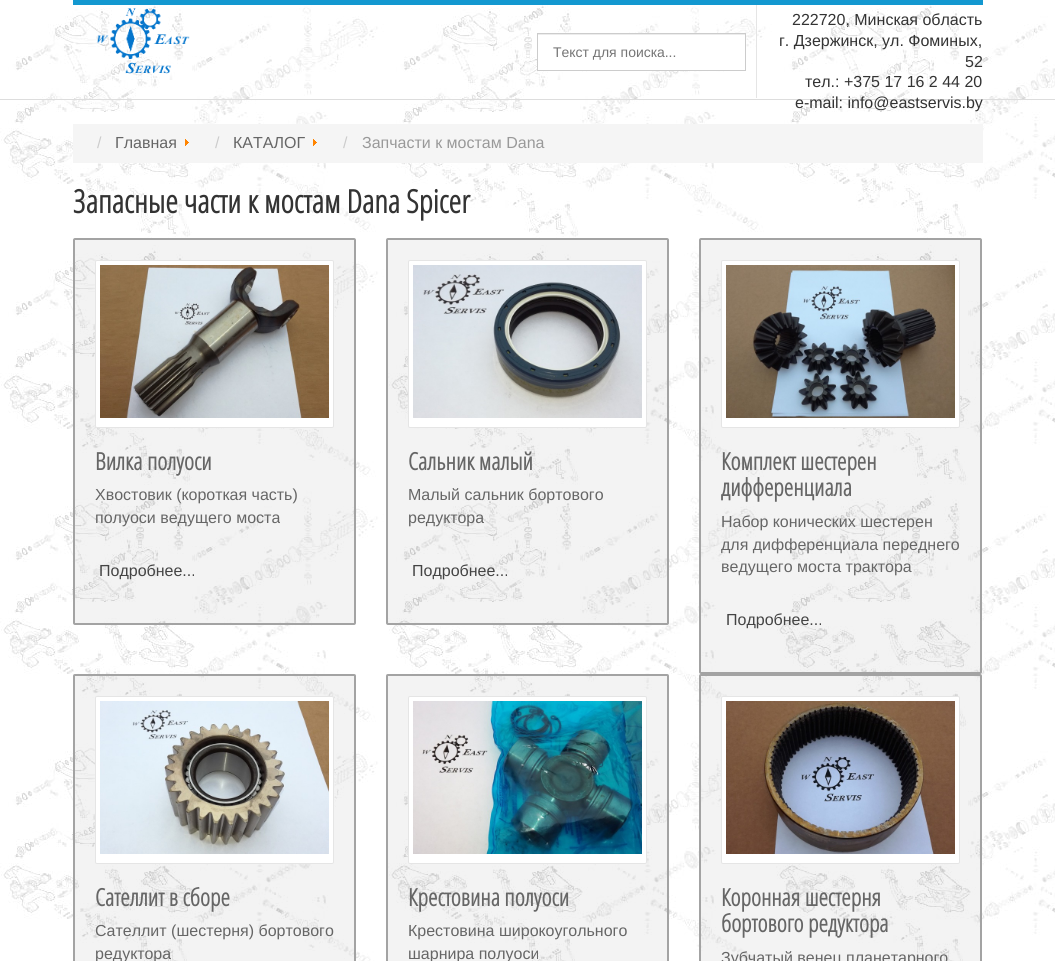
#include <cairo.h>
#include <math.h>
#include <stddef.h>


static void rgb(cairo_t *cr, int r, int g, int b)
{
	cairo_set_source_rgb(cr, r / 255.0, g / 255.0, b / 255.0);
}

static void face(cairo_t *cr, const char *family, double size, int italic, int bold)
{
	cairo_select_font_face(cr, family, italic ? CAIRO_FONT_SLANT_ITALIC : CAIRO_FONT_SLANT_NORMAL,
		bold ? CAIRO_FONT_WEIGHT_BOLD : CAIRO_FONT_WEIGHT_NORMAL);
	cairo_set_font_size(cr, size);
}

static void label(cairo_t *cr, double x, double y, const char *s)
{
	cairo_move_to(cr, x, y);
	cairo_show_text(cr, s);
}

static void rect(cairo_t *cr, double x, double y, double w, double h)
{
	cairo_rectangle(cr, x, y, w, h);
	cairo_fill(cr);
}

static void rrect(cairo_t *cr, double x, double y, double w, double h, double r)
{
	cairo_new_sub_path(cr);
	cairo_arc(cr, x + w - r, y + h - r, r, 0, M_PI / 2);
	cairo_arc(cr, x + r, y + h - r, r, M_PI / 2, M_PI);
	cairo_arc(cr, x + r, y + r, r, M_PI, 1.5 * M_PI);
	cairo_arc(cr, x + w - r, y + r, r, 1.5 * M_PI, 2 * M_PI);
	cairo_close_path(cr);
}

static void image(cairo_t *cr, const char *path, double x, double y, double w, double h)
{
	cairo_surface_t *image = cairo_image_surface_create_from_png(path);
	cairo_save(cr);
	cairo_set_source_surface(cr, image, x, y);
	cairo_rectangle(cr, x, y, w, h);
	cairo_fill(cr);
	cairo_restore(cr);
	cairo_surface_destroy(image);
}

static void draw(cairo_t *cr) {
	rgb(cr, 255, 255, 255);
	cairo_paint(cr);
	image(cr, "image0.png", 0, 3, 1055, 958);
	rgb(cr, 221, 221, 221);
	rect(cr, 0, 99, 1055, 1);
	cairo_set_source_rgba(cr, 0.8, 0.8, 0.8, 0.5);
	rect(cr, 756, 3, 1, 95);
	rgb(cr, 19, 152, 208);
	rect(cr, 73, 0, 910, 5);
	image(cr, "image1.png", 97, 8, 93, 66);
	rgb(cr, 255, 255, 255);
	rect(cr, 538, 35, 207, 35);
	rgb(cr, 236, 236, 236);
	rect(cr, 538, 34, 207, 1);
	cairo_rectangle(cr, 537.5, 33.5, 208, 37);
	rgb(cr, 204, 204, 204);
	cairo_set_line_width(cr, 1);
	cairo_stroke(cr);
	face(cr, "Liberation Sans", 14, 0, 0);
	rgb(cr, 117, 117, 117);
	label(cr, 553, 57, "Текст для поиска...");
	face(cr, "Liberation Sans", 16, 0, 0);
	rgb(cr, 51, 51, 51);
	label(cr, 792, 25, "222720, Минская область");
	label(cr, 779, 46, "г. Дзержинск, ул. Фоминых,");
	label(cr, 965, 67, "52");
	label(cr, 805, 87, "тел.: +375 17 16 2 44 20");
	label(cr, 795, 108, "e-mail: info@eastservis.by");
	rgb(cr, 245, 245, 245);
	rect(cr, 73, 124, 910, 39);
	rgb(cr, 204, 204, 204);
	label(cr, 97, 148, "/");
	rgb(cr, 102, 102, 102);
	label(cr, 115, 148, "Главная");
	image(cr, "image2.png", 185, 139, 4, 7);
	rgb(cr, 204, 204, 204);
	label(cr, 215, 148, "/");
	rgb(cr, 102, 102, 102);
	label(cr, 233, 148, "КАТАЛОГ");
	image(cr, "image2.png", 313, 139, 4, 7);
	rgb(cr, 204, 204, 204);
	label(cr, 343, 148, "/");
	rgb(cr, 153, 153, 153);
	label(cr, 362, 148, "Запчасти к мостам Dana");
	face(cr, "Open Sans Condensed", 32, 0, 1);
	rgb(cr, 51, 51, 51);
	label(cr, 73, 213, "Запасные части к мостам Dana Spicer");
	cairo_set_source_rgba(cr, 0, 0, 0, 0.05);
	rrect(cr, 74, 239, 281, 385, 1);
	cairo_fill_preserve(cr);
	rgb(cr, 163, 163, 163);
	cairo_set_line_width(cr, 2);
	cairo_stroke(cr);
	rgb(cr, 255, 255, 255);
	rrect(cr, 95.5, 260.5, 238, 167, 1.5);
	cairo_fill_preserve(cr);
	rgb(cr, 229, 229, 229);
	cairo_set_line_width(cr, 1);
	cairo_stroke(cr);
	image(cr, "image3.png", 100, 265, 229, 153);
	face(cr, "Open Sans Condensed", 24, 0, 1);
	rgb(cr, 102, 102, 102);
	label(cr, 95, 470, "Вилка полуоси");
	face(cr, "Liberation Sans", 16, 0, 0);
	label(cr, 95, 500, "Хвостовик (короткая часть)");
	label(cr, 95, 523, "полуоси ведущего моста");
	rgb(cr, 68, 68, 68);
	label(cr, 99, 576, "Подробнее...");
	cairo_set_source_rgba(cr, 0, 0, 0, 0.05);
	rrect(cr, 387, 239, 281, 385, 1);
	cairo_fill_preserve(cr);
	rgb(cr, 163, 163, 163);
	cairo_set_line_width(cr, 2);
	cairo_stroke(cr);
	rgb(cr, 255, 255, 255);
	rrect(cr, 408.5, 260.5, 238, 167, 1.5);
	cairo_fill_preserve(cr);
	rgb(cr, 229, 229, 229);
	cairo_set_line_width(cr, 1);
	cairo_stroke(cr);
	image(cr, "image4.png", 413, 265, 229, 153);
	face(cr, "Open Sans Condensed", 24, 0, 1);
	rgb(cr, 102, 102, 102);
	label(cr, 408, 470, "Сальник малый");
	face(cr, "Liberation Sans", 16, 0, 0);
	label(cr, 408, 500, "Малый сальник бортового");
	label(cr, 408, 523, "редуктора");
	rgb(cr, 68, 68, 68);
	label(cr, 412, 576, "Подробнее...");
	cairo_set_source_rgba(cr, 0, 0, 0, 0.05);
	rrect(cr, 700, 239, 281, 434, 1);
	cairo_fill_preserve(cr);
	rgb(cr, 163, 163, 163);
	cairo_set_line_width(cr, 2);
	cairo_stroke(cr);
	rgb(cr, 255, 255, 255);
	rrect(cr, 721.5, 260.5, 238, 167, 1.5);
	cairo_fill_preserve(cr);
	rgb(cr, 229, 229, 229);
	cairo_set_line_width(cr, 1);
	cairo_stroke(cr);
	image(cr, "image5.png", 726, 265, 229, 153);
	face(cr, "Open Sans Condensed", 24, 0, 1);
	rgb(cr, 102, 102, 102);
	label(cr, 721, 470, "Комплект шестерен");
	label(cr, 721, 496, "дифференциала");
	face(cr, "Liberation Sans", 16, 0, 0);
	label(cr, 721, 527, "Набор конических шестерен");
	label(cr, 721, 550, "для дифференциала переднего");
	label(cr, 721, 572, "ведущего моста трактора");
	rgb(cr, 68, 68, 68);
	label(cr, 726, 625, "Подробнее...");
	cairo_set_source_rgba(cr, 0, 0, 0, 0.05);
	rect(cr, 73, 674, 283, 287);
	rrect(cr, 74, 675, 281, 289, 1);
	rgb(cr, 163, 163, 163);
	cairo_set_line_width(cr, 2);
	cairo_stroke(cr);
	rgb(cr, 255, 255, 255);
	rrect(cr, 95.5, 696.5, 238, 167, 1.5);
	cairo_fill_preserve(cr);
	rgb(cr, 229, 229, 229);
	cairo_set_line_width(cr, 1);
	cairo_stroke(cr);
	image(cr, "image6.png", 100, 701, 229, 153);
	face(cr, "Open Sans Condensed", 24, 0, 1);
	rgb(cr, 102, 102, 102);
	label(cr, 95, 906, "Сателлит в сборе");
	face(cr, "Liberation Sans", 16, 0, 0);
	label(cr, 95, 936, "Сателлит (шестерня) бортового");
	label(cr, 95, 959, "редуктора");
	cairo_set_source_rgba(cr, 0, 0, 0, 0.05);
	rect(cr, 386, 674, 283, 287);
	rrect(cr, 387, 675, 281, 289, 1);
	rgb(cr, 163, 163, 163);
	cairo_set_line_width(cr, 2);
	cairo_stroke(cr);
	rgb(cr, 255, 255, 255);
	rrect(cr, 408.5, 696.5, 238, 167, 1.5);
	cairo_fill_preserve(cr);
	rgb(cr, 229, 229, 229);
	cairo_set_line_width(cr, 1);
	cairo_stroke(cr);
	image(cr, "image7.png", 413, 701, 229, 153);
	face(cr, "Open Sans Condensed", 24, 0, 1);
	rgb(cr, 102, 102, 102);
	label(cr, 408, 906, "Крестовина полуоси");
	face(cr, "Liberation Sans", 16, 0, 0);
	label(cr, 408, 936, "Крестовина широкоугольного");
	label(cr, 408, 959, "шарнира полуоси");
	cairo_set_source_rgba(cr, 0, 0, 0, 0.05);
	rect(cr, 699, 674, 283, 287);
	rrect(cr, 700, 675, 281, 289, 1);
	rgb(cr, 163, 163, 163);
	cairo_set_line_width(cr, 2);
	cairo_stroke(cr);
	rgb(cr, 255, 255, 255);
	rrect(cr, 721.5, 696.5, 238, 167, 1.5);
	cairo_fill_preserve(cr);
	rgb(cr, 229, 229, 229);
	cairo_set_line_width(cr, 1);
	cairo_stroke(cr);
	image(cr, "image8.png", 726, 701, 229, 153);
	face(cr, "Open Sans Condensed", 24, 0, 1);
	rgb(cr, 102, 102, 102);
	label(cr, 721, 906, "Коронная шестерня");
	label(cr, 721, 932, "бортового редуктора");
	face(cr, "Liberation Sans", 16, 0, 0);
	label(cr, 721, 963, "Зубчатый венец планетарного");
}

int main(void) {
	cairo_surface_t *surface = cairo_image_surface_create(CAIRO_FORMAT_RGB24, 1055, 961);
	cairo_t *cr = cairo_create(surface);
	cairo_font_options_t *options = cairo_font_options_create();
	cairo_font_options_set_hint_metrics(options, CAIRO_HINT_METRICS_OFF);
	cairo_font_options_set_hint_style(options, CAIRO_HINT_STYLE_NONE);
	cairo_set_font_options(cr, options);
	cairo_set_miter_limit(cr, 4);
	draw(cr);
	cairo_surface_write_to_png(surface, "render.png");
	cairo_font_options_destroy(options);
	cairo_destroy(cr);
	cairo_surface_destroy(surface);
	return 0;
}
